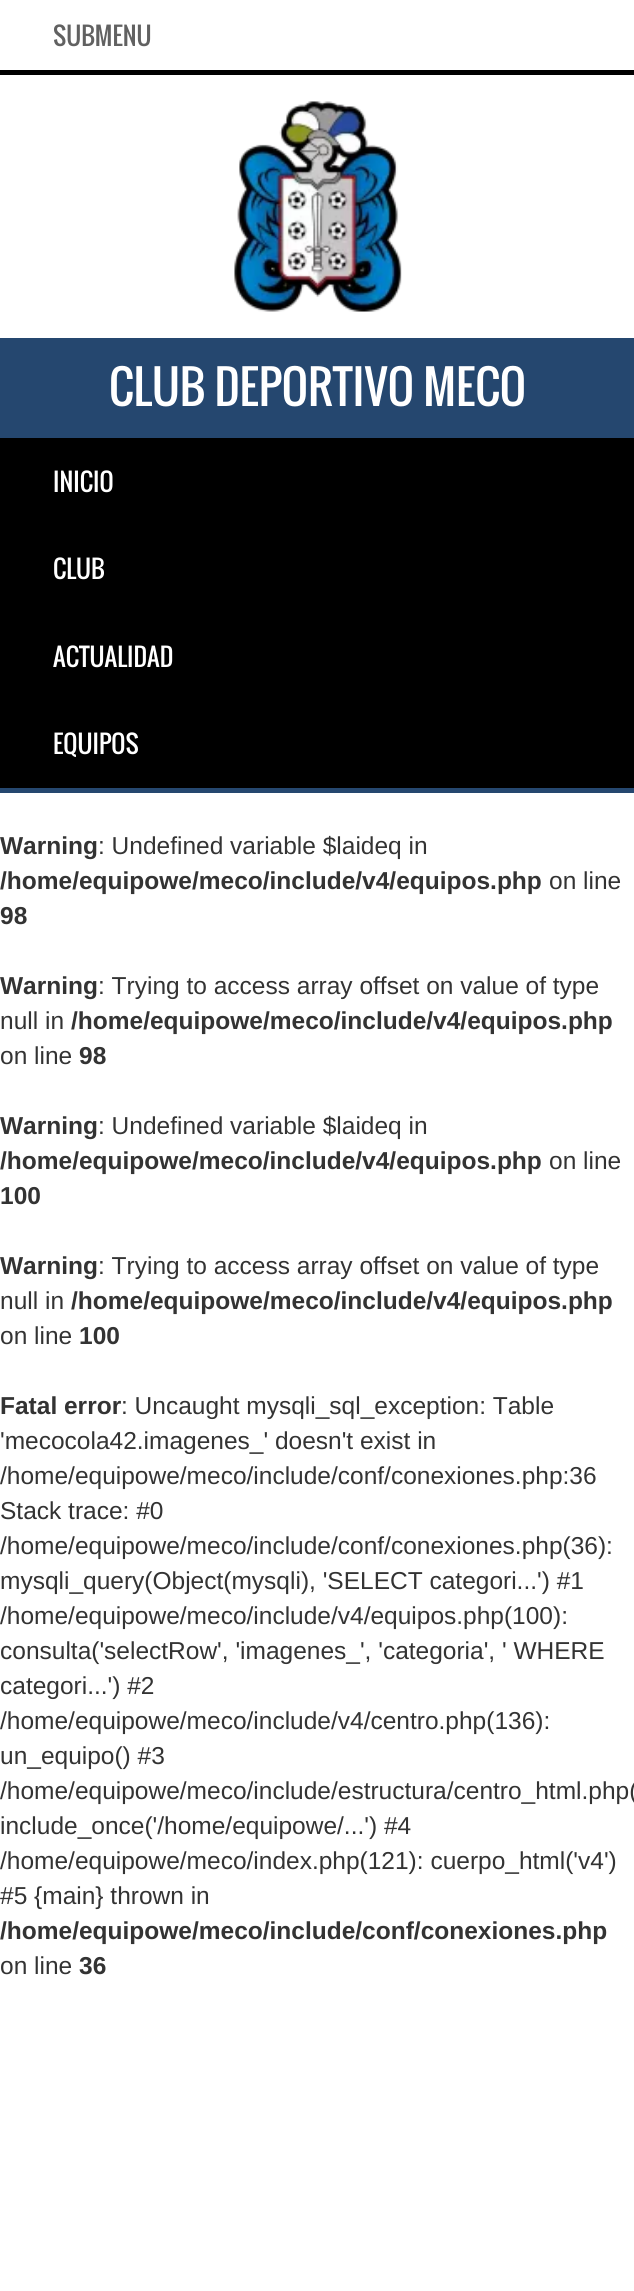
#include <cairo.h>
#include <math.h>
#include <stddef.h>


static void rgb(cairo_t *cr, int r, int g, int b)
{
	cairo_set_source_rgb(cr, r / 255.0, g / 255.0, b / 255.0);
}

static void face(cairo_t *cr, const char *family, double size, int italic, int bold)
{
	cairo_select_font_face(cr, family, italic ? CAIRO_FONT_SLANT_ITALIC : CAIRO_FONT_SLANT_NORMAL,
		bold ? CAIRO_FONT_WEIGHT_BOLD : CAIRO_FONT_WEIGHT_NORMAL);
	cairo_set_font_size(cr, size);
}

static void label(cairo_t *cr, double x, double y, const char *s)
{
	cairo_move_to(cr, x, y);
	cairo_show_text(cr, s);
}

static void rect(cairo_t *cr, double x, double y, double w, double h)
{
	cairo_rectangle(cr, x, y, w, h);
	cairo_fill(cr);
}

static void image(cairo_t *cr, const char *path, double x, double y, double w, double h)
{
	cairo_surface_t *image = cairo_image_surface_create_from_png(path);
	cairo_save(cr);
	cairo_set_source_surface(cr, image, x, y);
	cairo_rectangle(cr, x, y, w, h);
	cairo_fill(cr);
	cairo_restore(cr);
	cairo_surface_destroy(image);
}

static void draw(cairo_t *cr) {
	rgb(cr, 255, 255, 255);
	cairo_paint(cr);
	rgb(cr, 0, 0, 0);
	rect(cr, 0, 70, 634, 5);
	face(cr, "Oswald", 24.5, 0, 0);
	rgb(cr, 97, 97, 97);
	label(cr, 53, 46, "SUBMENU");
	image(cr, "image0.png", 234, 101, 168, 211);
	rgb(cr, 37, 71, 111);
	rect(cr, 0, 338, 634, 100);
	face(cr, "Oswald", 45.5, 0, 0);
	rgb(cr, 255, 255, 255);
	label(cr, 109, 406, "CLUB DEPORTIVO MECO");
	rgb(cr, 0, 0, 0);
	rect(cr, 0, 438, 634, 350);
	rgb(cr, 37, 71, 111);
	rect(cr, 0, 788, 634, 5);
	face(cr, "Oswald", 24.5, 0, 0);
	rgb(cr, 255, 255, 255);
	label(cr, 53, 492, "INICIO");
	label(cr, 53, 579, "CLUB");
	label(cr, 53, 667, "ACTUALIDAD");
	label(cr, 53, 754, "EQUIPOS");
	face(cr, "Liberation Sans", 24.5, 0, 1);
	rgb(cr, 51, 51, 51);
	label(cr, 0, 854, "Warning");
	face(cr, "Liberation Sans", 24.5, 0, 0);
	label(cr, 98, 854, ": Undefined variable $laideq in");
	face(cr, "Liberation Sans", 24.5, 0, 1);
	label(cr, 0, 889, "/home/equipowe/meco/include/v4/equipos.php");
	face(cr, "Liberation Sans", 24.5, 0, 0);
	label(cr, 549, 889, "on line");
	face(cr, "Liberation Sans", 24.5, 0, 1);
	label(cr, 0, 924, "98");
	label(cr, 0, 994, "Warning");
	face(cr, "Liberation Sans", 24.5, 0, 0);
	label(cr, 98, 994, ": Trying to access array offset on value of type");
	label(cr, 0, 1029, "null in");
	face(cr, "Liberation Sans", 24.5, 0, 1);
	label(cr, 71, 1029, "/home/equipowe/meco/include/v4/equipos.php");
	face(cr, "Liberation Sans", 24.5, 0, 0);
	label(cr, 0, 1064, "on line");
	face(cr, "Liberation Sans", 24.5, 0, 1);
	label(cr, 79, 1064, "98");
	label(cr, 0, 1134, "Warning");
	face(cr, "Liberation Sans", 24.5, 0, 0);
	label(cr, 98, 1134, ": Undefined variable $laideq in");
	face(cr, "Liberation Sans", 24.5, 0, 1);
	label(cr, 0, 1169, "/home/equipowe/meco/include/v4/equipos.php");
	face(cr, "Liberation Sans", 24.5, 0, 0);
	label(cr, 549, 1169, "on line");
	face(cr, "Liberation Sans", 24.5, 0, 1);
	label(cr, 0, 1204, "100");
	label(cr, 0, 1274, "Warning");
	face(cr, "Liberation Sans", 24.5, 0, 0);
	label(cr, 98, 1274, ": Trying to access array offset on value of type");
	label(cr, 0, 1309, "null in");
	face(cr, "Liberation Sans", 24.5, 0, 1);
	label(cr, 71, 1309, "/home/equipowe/meco/include/v4/equipos.php");
	face(cr, "Liberation Sans", 24.5, 0, 0);
	label(cr, 0, 1344, "on line");
	face(cr, "Liberation Sans", 24.5, 0, 1);
	label(cr, 79, 1344, "100");
	label(cr, 0, 1414, "Fatal error");
	face(cr, "Liberation Sans", 24.5, 0, 0);
	label(cr, 121, 1414, ": Uncaught mysqli_sql_exception: Table");
	label(cr, 0, 1449, "'mecocola42.imagenes_' doesn't exist in");
	label(cr, 0, 1484, "/home/equipowe/meco/include/conf/conexiones.php:36");
	label(cr, 0, 1519, "Stack trace: #0");
	label(cr, 0, 1554, "/home/equipowe/meco/include/conf/conexiones.php(36):");
	label(cr, 0, 1589, "mysqli_query(Object(mysqli), 'SELECT categori...') #1");
	label(cr, 0, 1624, "/home/equipowe/meco/include/v4/equipos.php(100):");
	label(cr, 0, 1659, "consulta('selectRow', 'imagenes_', 'categoria', ' WHERE");
	label(cr, 0, 1694, "categori...') #2");
	label(cr, 0, 1729, "/home/equipowe/meco/include/v4/centro.php(136):");
	label(cr, 0, 1764, "un_equipo() #3");
	label(cr, 0, 1799, "/home/equipowe/meco/include/estructura/centro_html.php(");
	label(cr, 0, 1834, "include_once('/home/equipowe/...') #4");
	label(cr, 0, 1869, "/home/equipowe/meco/index.php(121): cuerpo_html('v4')");
	label(cr, 0, 1904, "#5 {main} thrown in");
	face(cr, "Liberation Sans", 24.5, 0, 1);
	label(cr, 0, 1939, "/home/equipowe/meco/include/conf/conexiones.php");
	face(cr, "Liberation Sans", 24.5, 0, 0);
	label(cr, 0, 1974, "on line");
	face(cr, "Liberation Sans", 24.5, 0, 1);
	label(cr, 79, 1974, "36");
}

int main(void) {
	cairo_surface_t *surface = cairo_image_surface_create(CAIRO_FORMAT_RGB24, 634, 2291);
	cairo_t *cr = cairo_create(surface);
	cairo_font_options_t *options = cairo_font_options_create();
	cairo_font_options_set_hint_metrics(options, CAIRO_HINT_METRICS_OFF);
	cairo_font_options_set_hint_style(options, CAIRO_HINT_STYLE_NONE);
	cairo_set_font_options(cr, options);
	cairo_set_miter_limit(cr, 4);
	draw(cr);
	cairo_surface_write_to_png(surface, "render.png");
	cairo_font_options_destroy(options);
	cairo_destroy(cr);
	cairo_surface_destroy(surface);
	return 0;
}
